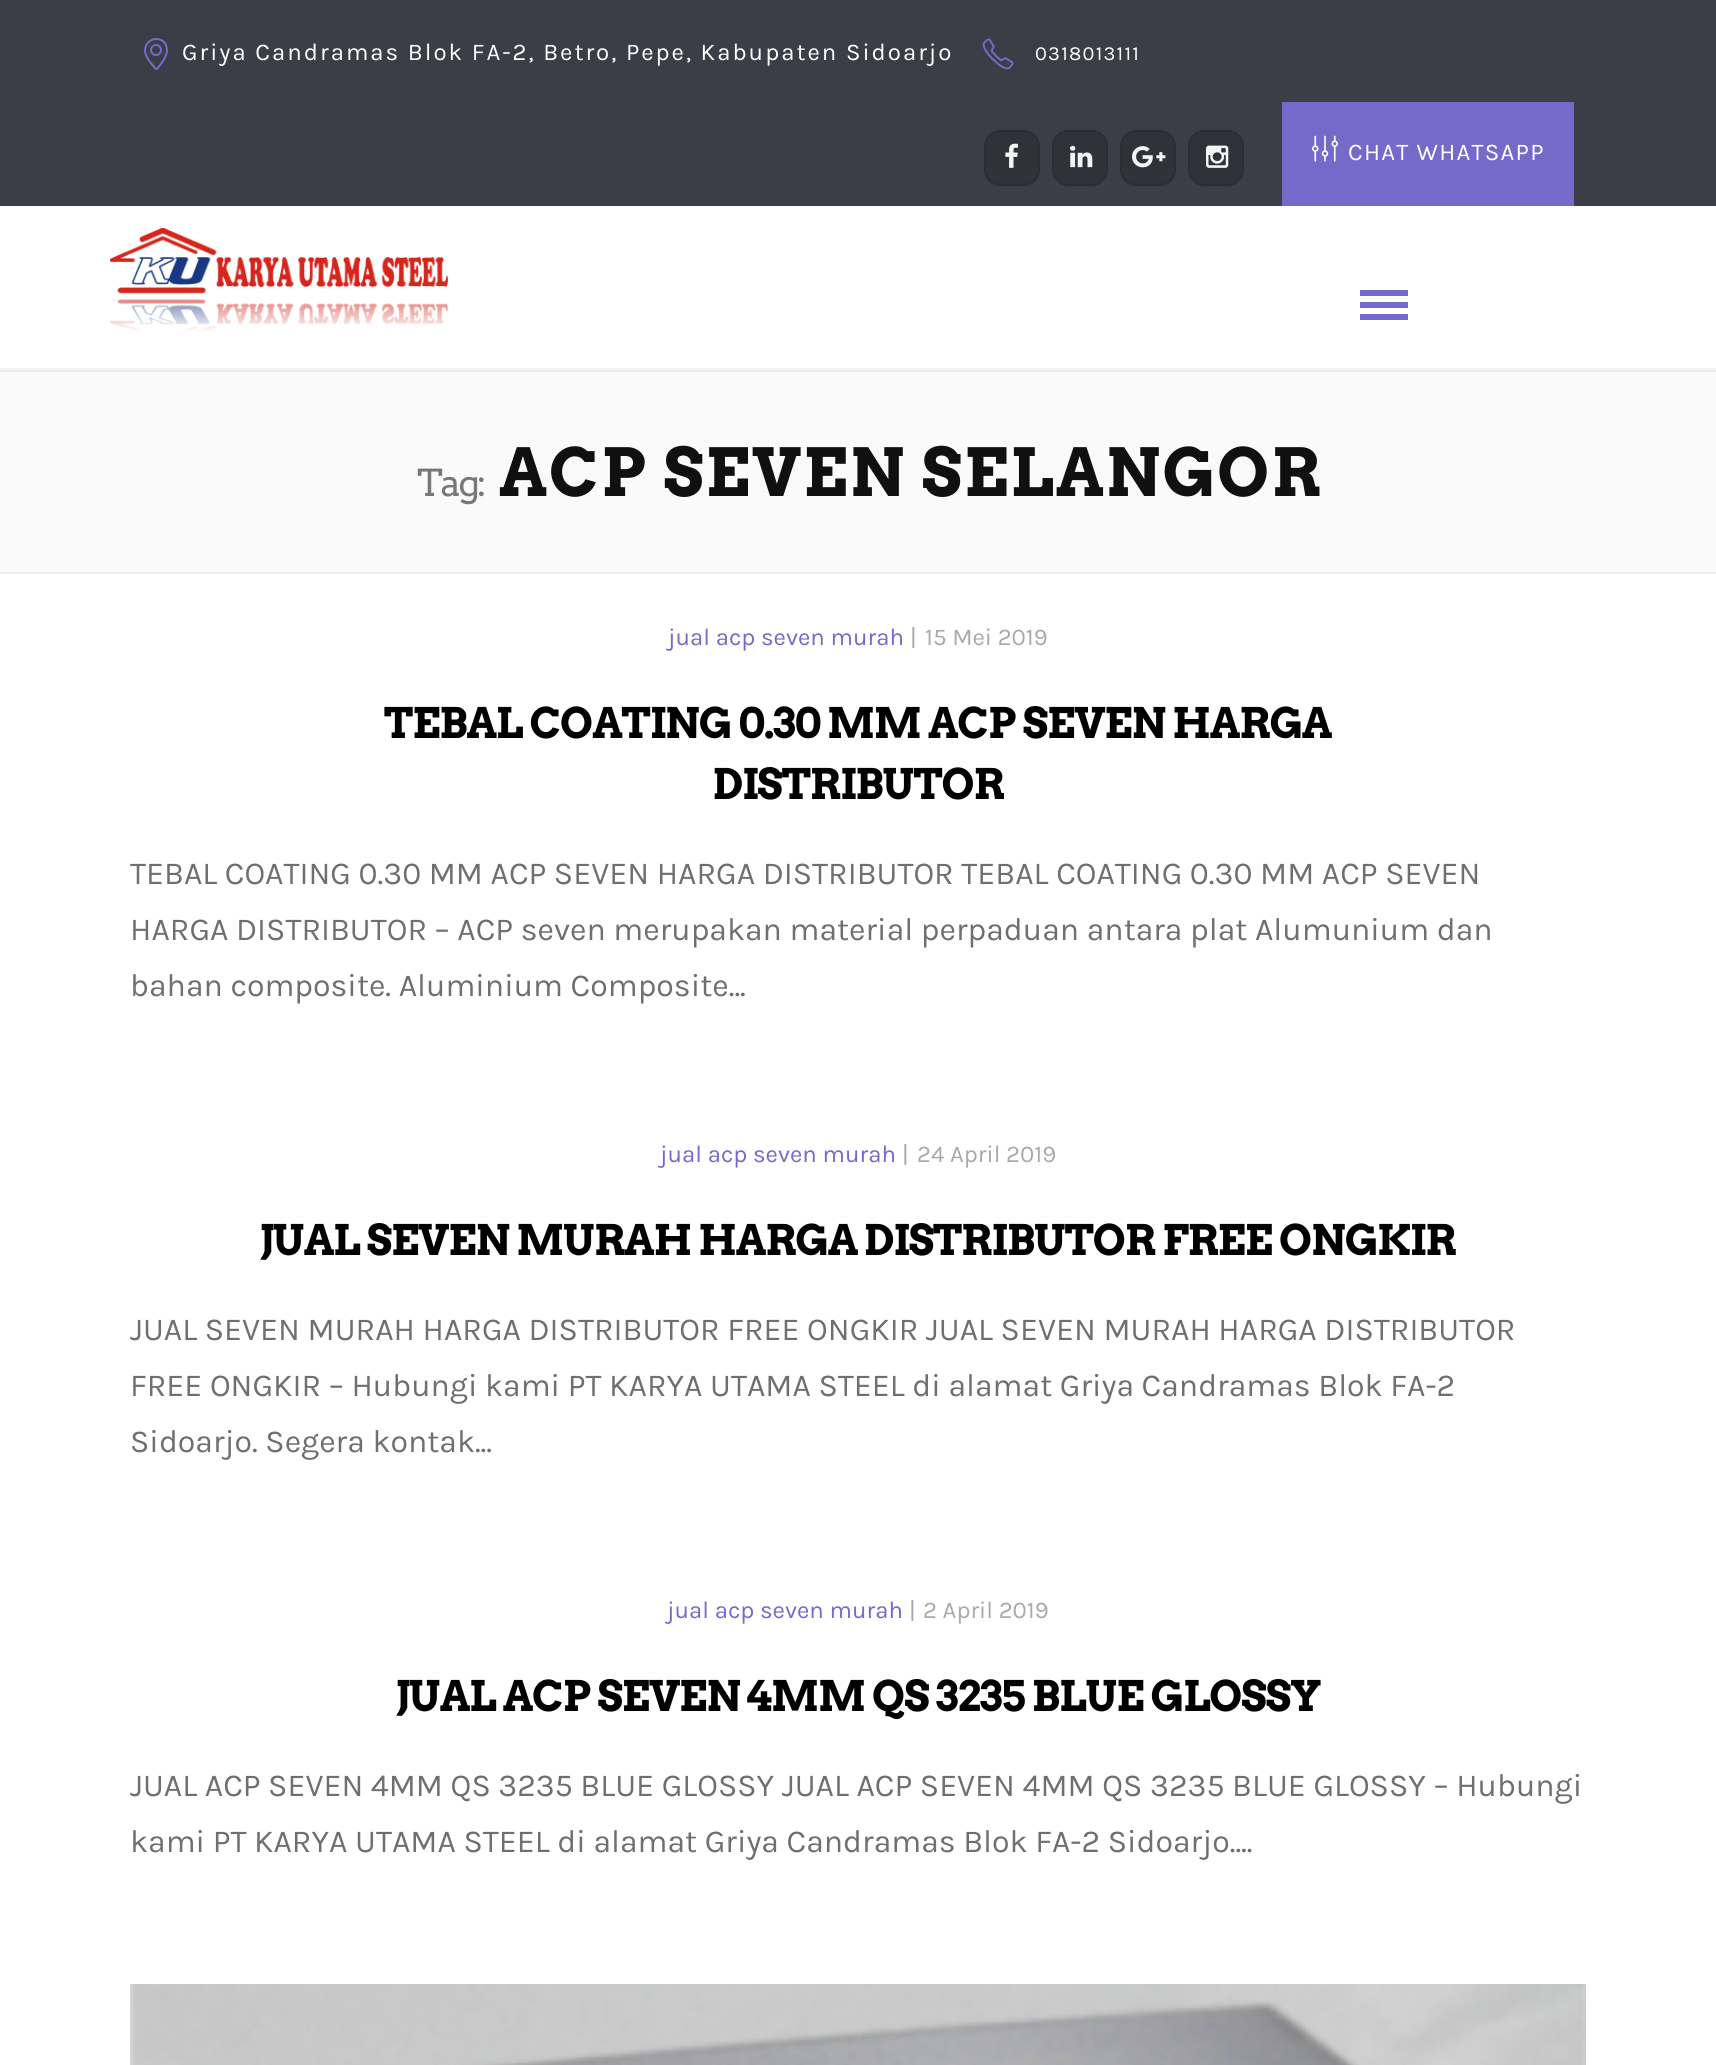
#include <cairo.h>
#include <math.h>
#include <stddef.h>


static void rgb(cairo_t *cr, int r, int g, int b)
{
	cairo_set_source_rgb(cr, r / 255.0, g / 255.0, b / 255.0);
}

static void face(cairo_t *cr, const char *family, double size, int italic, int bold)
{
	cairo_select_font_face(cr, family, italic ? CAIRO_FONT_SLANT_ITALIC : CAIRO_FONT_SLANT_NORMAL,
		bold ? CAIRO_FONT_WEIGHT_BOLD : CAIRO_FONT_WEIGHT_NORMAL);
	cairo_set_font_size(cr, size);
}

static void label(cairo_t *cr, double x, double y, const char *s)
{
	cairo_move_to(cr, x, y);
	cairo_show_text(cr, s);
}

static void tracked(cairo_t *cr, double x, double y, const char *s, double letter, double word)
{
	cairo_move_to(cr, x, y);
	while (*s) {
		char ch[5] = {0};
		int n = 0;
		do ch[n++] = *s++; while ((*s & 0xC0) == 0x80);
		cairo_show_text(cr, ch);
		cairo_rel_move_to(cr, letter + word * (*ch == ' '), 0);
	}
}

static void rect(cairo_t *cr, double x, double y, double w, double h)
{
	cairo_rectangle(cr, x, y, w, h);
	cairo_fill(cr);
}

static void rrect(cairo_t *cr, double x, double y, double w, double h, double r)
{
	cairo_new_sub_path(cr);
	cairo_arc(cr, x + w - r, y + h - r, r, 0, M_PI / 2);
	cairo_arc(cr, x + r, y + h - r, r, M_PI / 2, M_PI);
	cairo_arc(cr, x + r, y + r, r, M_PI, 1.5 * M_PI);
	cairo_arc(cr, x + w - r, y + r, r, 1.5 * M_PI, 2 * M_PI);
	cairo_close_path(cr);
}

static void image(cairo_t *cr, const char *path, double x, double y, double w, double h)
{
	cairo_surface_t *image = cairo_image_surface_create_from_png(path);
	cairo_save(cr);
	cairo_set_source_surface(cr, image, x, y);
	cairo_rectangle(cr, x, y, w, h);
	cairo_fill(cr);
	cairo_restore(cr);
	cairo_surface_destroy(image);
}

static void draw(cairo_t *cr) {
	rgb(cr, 255, 255, 255);
	cairo_paint(cr);
	rgb(cr, 59, 62, 70);
	rect(cr, 0, 0, 1716, 206);
	image(cr, "image0.png", 144, 38, 24, 32);
	face(cr, "Karla", 24, 0, 0);
	rgb(cr, 255, 255, 255);
	tracked(cr, 182, 60, "Griya Candramas Blok FA-2, Betro, Pepe, Kabupaten Sidoarjo", 2, 0);
	image(cr, "image1.png", 982, 38, 32, 32);
	face(cr, "Karla", 20, 0, 0);
	tracked(cr, 1035, 60, "0318013111", 1.25, 0);
	rgb(cr, 48, 50, 57);
	rrect(cr, 985, 131, 54, 54, 15);
	cairo_fill_preserve(cr);
	rgb(cr, 44, 45, 52);
	cairo_stroke(cr);
	image(cr, "image2.png", 1005, 143, 13, 25);
	rgb(cr, 48, 50, 57);
	rrect(cr, 1053, 131, 54, 54, 15);
	cairo_fill_preserve(cr);
	rgb(cr, 44, 45, 52);
	cairo_stroke(cr);
	image(cr, "image3.png", 1070, 145, 23, 23);
	rgb(cr, 48, 50, 57);
	rrect(cr, 1121, 131, 54, 54, 15);
	cairo_fill_preserve(cr);
	rgb(cr, 44, 45, 52);
	cairo_stroke(cr);
	image(cr, "image4.png", 1132, 146, 34, 22);
	rgb(cr, 48, 50, 57);
	rrect(cr, 1189, 131, 54, 54, 15);
	cairo_fill_preserve(cr);
	rgb(cr, 44, 45, 52);
	cairo_stroke(cr);
	image(cr, "image5.png", 1206, 145, 23, 23);
	rgb(cr, 116, 106, 202);
	rect(cr, 1282, 102, 292, 104);
	image(cr, "image6.png", 1312, 135, 26, 27);
	face(cr, "Karla", 24, 0, 0);
	rgb(cr, 255, 255, 255);
	tracked(cr, 1348, 160, "CHAT WHATSAPP", 1.25, 0);
	rgb(cr, 241, 241, 241);
	rect(cr, 0, 368, 1716, 2);
	image(cr, "image7.png", 110, 228, 338, 103);
	rgb(cr, 116, 106, 202);
	rect(cr, 1360, 290, 48, 6);
	rect(cr, 1360, 302, 48, 6);
	rect(cr, 1360, 314, 48, 6);
	rgb(cr, 250, 250, 250);
	rect(cr, 0, 372, 1716, 200);
	rgb(cr, 238, 238, 238);
	rect(cr, 0, 370, 1716, 2);
	rect(cr, 0, 572, 1716, 2);
	face(cr, "Arvo", 37, 0, 0);
	rgb(cr, 119, 119, 119);
	tracked(cr, 417, 496, "Tag:", -2.5, 0);
	face(cr, "Arvo", 66, 0, 1);
	rgb(cr, 16, 16, 16);
	tracked(cr, 499, 496, "ACP SEVEN SELANGOR", 2, 0);
	face(cr, "Karla", 24, 0, 0);
	rgb(cr, 116, 106, 202);
	label(cr, 668, 645, "jual acp seven murah");
	rgb(cr, 161, 165, 173);
	label(cr, 910, 645, "|");
	rgb(cr, 169, 169, 169);
	label(cr, 925, 645, "15 Mei 2019");
	face(cr, "Arvo", 42, 0, 1);
	rgb(cr, 0, 0, 0);
	tracked(cr, 384, 738, "TEBAL COATING 0.30 MM ACP SEVEN HARGA", -1.2, 0);
	tracked(cr, 713, 799, "DISTRIBUTOR", -1.2, 0);
	face(cr, "Karla", 32, 0, 0);
	rgb(cr, 111, 111, 111);
	label(cr, 130, 884, "TEBAL COATING 0.30 MM ACP SEVEN HARGA DISTRIBUTOR TEBAL COATING 0.30 MM ACP SEVEN");
	label(cr, 130, 940, "HARGA DISTRIBUTOR – ACP seven merupakan material perpaduan antara plat Alumunium dan");
	label(cr, 130, 996, "bahan composite. Aluminium Composite...");
	face(cr, "Karla", 24, 0, 0);
	rgb(cr, 116, 106, 202);
	label(cr, 660, 1162, "jual acp seven murah");
	rgb(cr, 161, 165, 173);
	label(cr, 902, 1162, "|");
	rgb(cr, 169, 169, 169);
	label(cr, 917, 1162, "24 April 2019");
	face(cr, "Arvo", 42, 0, 1);
	rgb(cr, 0, 0, 0);
	tracked(cr, 260, 1255, "JUAL SEVEN MURAH HARGA DISTRIBUTOR FREE ONGKIR", -1.2, 0);
	face(cr, "Karla", 32, 0, 0);
	rgb(cr, 111, 111, 111);
	label(cr, 130, 1340, "JUAL SEVEN MURAH HARGA DISTRIBUTOR FREE ONGKIR JUAL SEVEN MURAH HARGA DISTRIBUTOR");
	label(cr, 130, 1396, "FREE ONGKIR – Hubungi kami PT KARYA UTAMA STEEL di alamat Griya Candramas Blok FA-2");
	label(cr, 130, 1452, "Sidoarjo. Segera kontak...");
	face(cr, "Karla", 24, 0, 0);
	rgb(cr, 116, 106, 202);
	label(cr, 667, 1618, "jual acp seven murah");
	rgb(cr, 161, 165, 173);
	label(cr, 909, 1618, "|");
	rgb(cr, 169, 169, 169);
	label(cr, 923, 1618, "2 April 2019");
	face(cr, "Arvo", 42, 0, 1);
	rgb(cr, 0, 0, 0);
	tracked(cr, 396, 1711, "JUAL ACP SEVEN 4MM QS 3235 BLUE GLOSSY", -1.2, 0);
	face(cr, "Karla", 32, 0, 0);
	rgb(cr, 111, 111, 111);
	label(cr, 130, 1796, "JUAL ACP SEVEN 4MM QS 3235 BLUE GLOSSY JUAL ACP SEVEN 4MM QS 3235 BLUE GLOSSY – Hubungi");
	label(cr, 130, 1852, "kami PT KARYA UTAMA STEEL di alamat Griya Candramas Blok FA-2 Sidoarjo....");
	image(cr, "image8.png", 130, 1984, 1456, 81);
}

int main(void) {
	cairo_surface_t *surface = cairo_image_surface_create(CAIRO_FORMAT_RGB24, 1716, 2065);
	cairo_t *cr = cairo_create(surface);
	cairo_font_options_t *options = cairo_font_options_create();
	cairo_font_options_set_hint_metrics(options, CAIRO_HINT_METRICS_OFF);
	cairo_font_options_set_hint_style(options, CAIRO_HINT_STYLE_NONE);
	cairo_set_font_options(cr, options);
	cairo_set_miter_limit(cr, 4);
	draw(cr);
	cairo_surface_write_to_png(surface, "render.png");
	cairo_font_options_destroy(options);
	cairo_destroy(cr);
	cairo_surface_destroy(surface);
	return 0;
}
